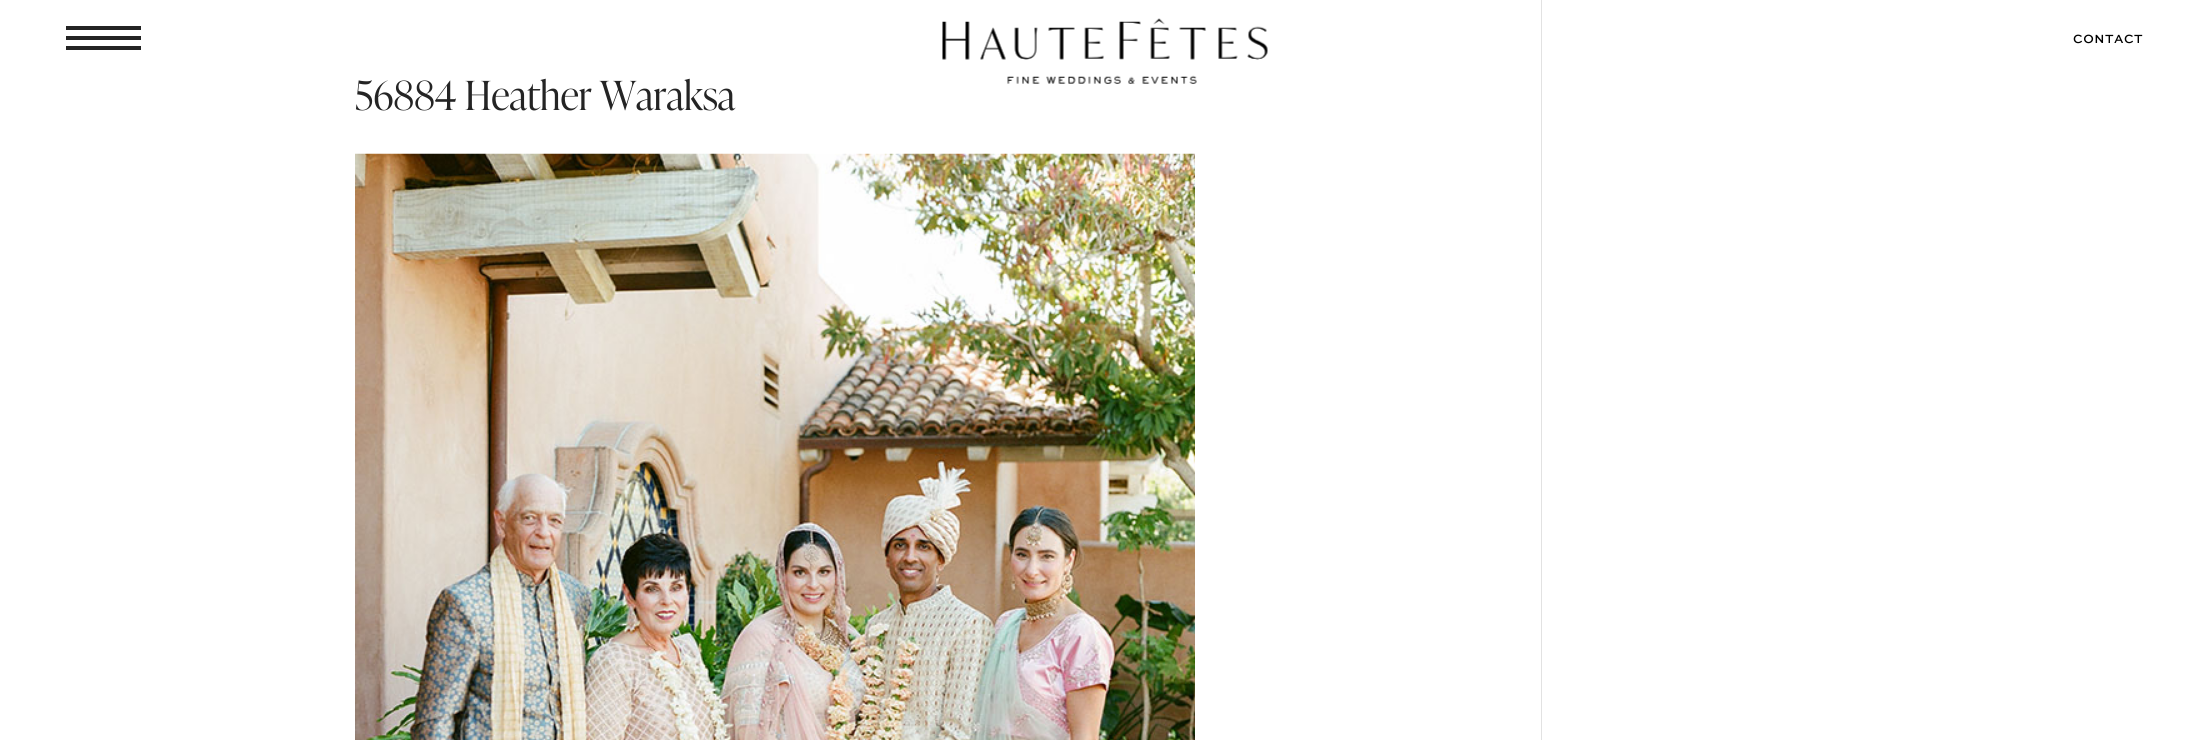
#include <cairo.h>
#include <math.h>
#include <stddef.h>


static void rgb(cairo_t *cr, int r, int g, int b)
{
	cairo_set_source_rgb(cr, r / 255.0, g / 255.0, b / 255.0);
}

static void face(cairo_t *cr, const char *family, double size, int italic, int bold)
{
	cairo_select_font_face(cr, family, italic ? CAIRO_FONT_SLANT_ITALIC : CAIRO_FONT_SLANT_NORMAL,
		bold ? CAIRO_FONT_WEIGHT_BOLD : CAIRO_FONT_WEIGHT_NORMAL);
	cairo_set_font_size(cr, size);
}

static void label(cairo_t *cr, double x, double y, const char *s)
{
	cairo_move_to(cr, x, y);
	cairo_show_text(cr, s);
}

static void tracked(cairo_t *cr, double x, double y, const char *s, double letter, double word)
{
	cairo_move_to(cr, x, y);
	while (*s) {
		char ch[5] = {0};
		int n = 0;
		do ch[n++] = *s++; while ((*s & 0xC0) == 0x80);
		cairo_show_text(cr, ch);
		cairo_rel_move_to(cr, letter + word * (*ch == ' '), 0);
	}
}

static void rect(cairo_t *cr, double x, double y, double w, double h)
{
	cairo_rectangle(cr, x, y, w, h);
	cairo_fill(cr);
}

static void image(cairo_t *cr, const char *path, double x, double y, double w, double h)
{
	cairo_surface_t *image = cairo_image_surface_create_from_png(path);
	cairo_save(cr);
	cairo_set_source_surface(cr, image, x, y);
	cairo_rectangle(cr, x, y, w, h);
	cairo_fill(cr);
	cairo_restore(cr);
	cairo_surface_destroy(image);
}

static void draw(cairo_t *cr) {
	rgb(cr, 255, 255, 255);
	cairo_paint(cr);
	rgb(cr, 36, 36, 36);
	rect(cr, 66, 26, 75, 4);
	rect(cr, 66, 36, 75, 4);
	rect(cr, 66, 46, 75, 4);
	image(cr, "image0.png", 942, 18, 326, 66);
	face(cr, "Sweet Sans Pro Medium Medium", 12.5, 0, 0);
	rgb(cr, 0, 0, 0);
	tracked(cr, 2073, 43, "CONTACT", 0.5, 0);
	face(cr, "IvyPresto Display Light", 40, 0, 0);
	rgb(cr, 36, 36, 36);
	label(cr, 355, 110, "56884 Heather Waraksa");
	image(cr, "image1.png", 355, 153, 840, 587);
	rgb(cr, 226, 226, 226);
	rect(cr, 1541, 0, 1, 740);
}

int main(void) {
	cairo_surface_t *surface = cairo_image_surface_create(CAIRO_FORMAT_RGB24, 2209, 740);
	cairo_t *cr = cairo_create(surface);
	cairo_font_options_t *options = cairo_font_options_create();
	cairo_font_options_set_hint_metrics(options, CAIRO_HINT_METRICS_OFF);
	cairo_font_options_set_hint_style(options, CAIRO_HINT_STYLE_NONE);
	cairo_set_font_options(cr, options);
	cairo_set_miter_limit(cr, 4);
	draw(cr);
	cairo_surface_write_to_png(surface, "render.png");
	cairo_font_options_destroy(options);
	cairo_destroy(cr);
	cairo_surface_destroy(surface);
	return 0;
}
